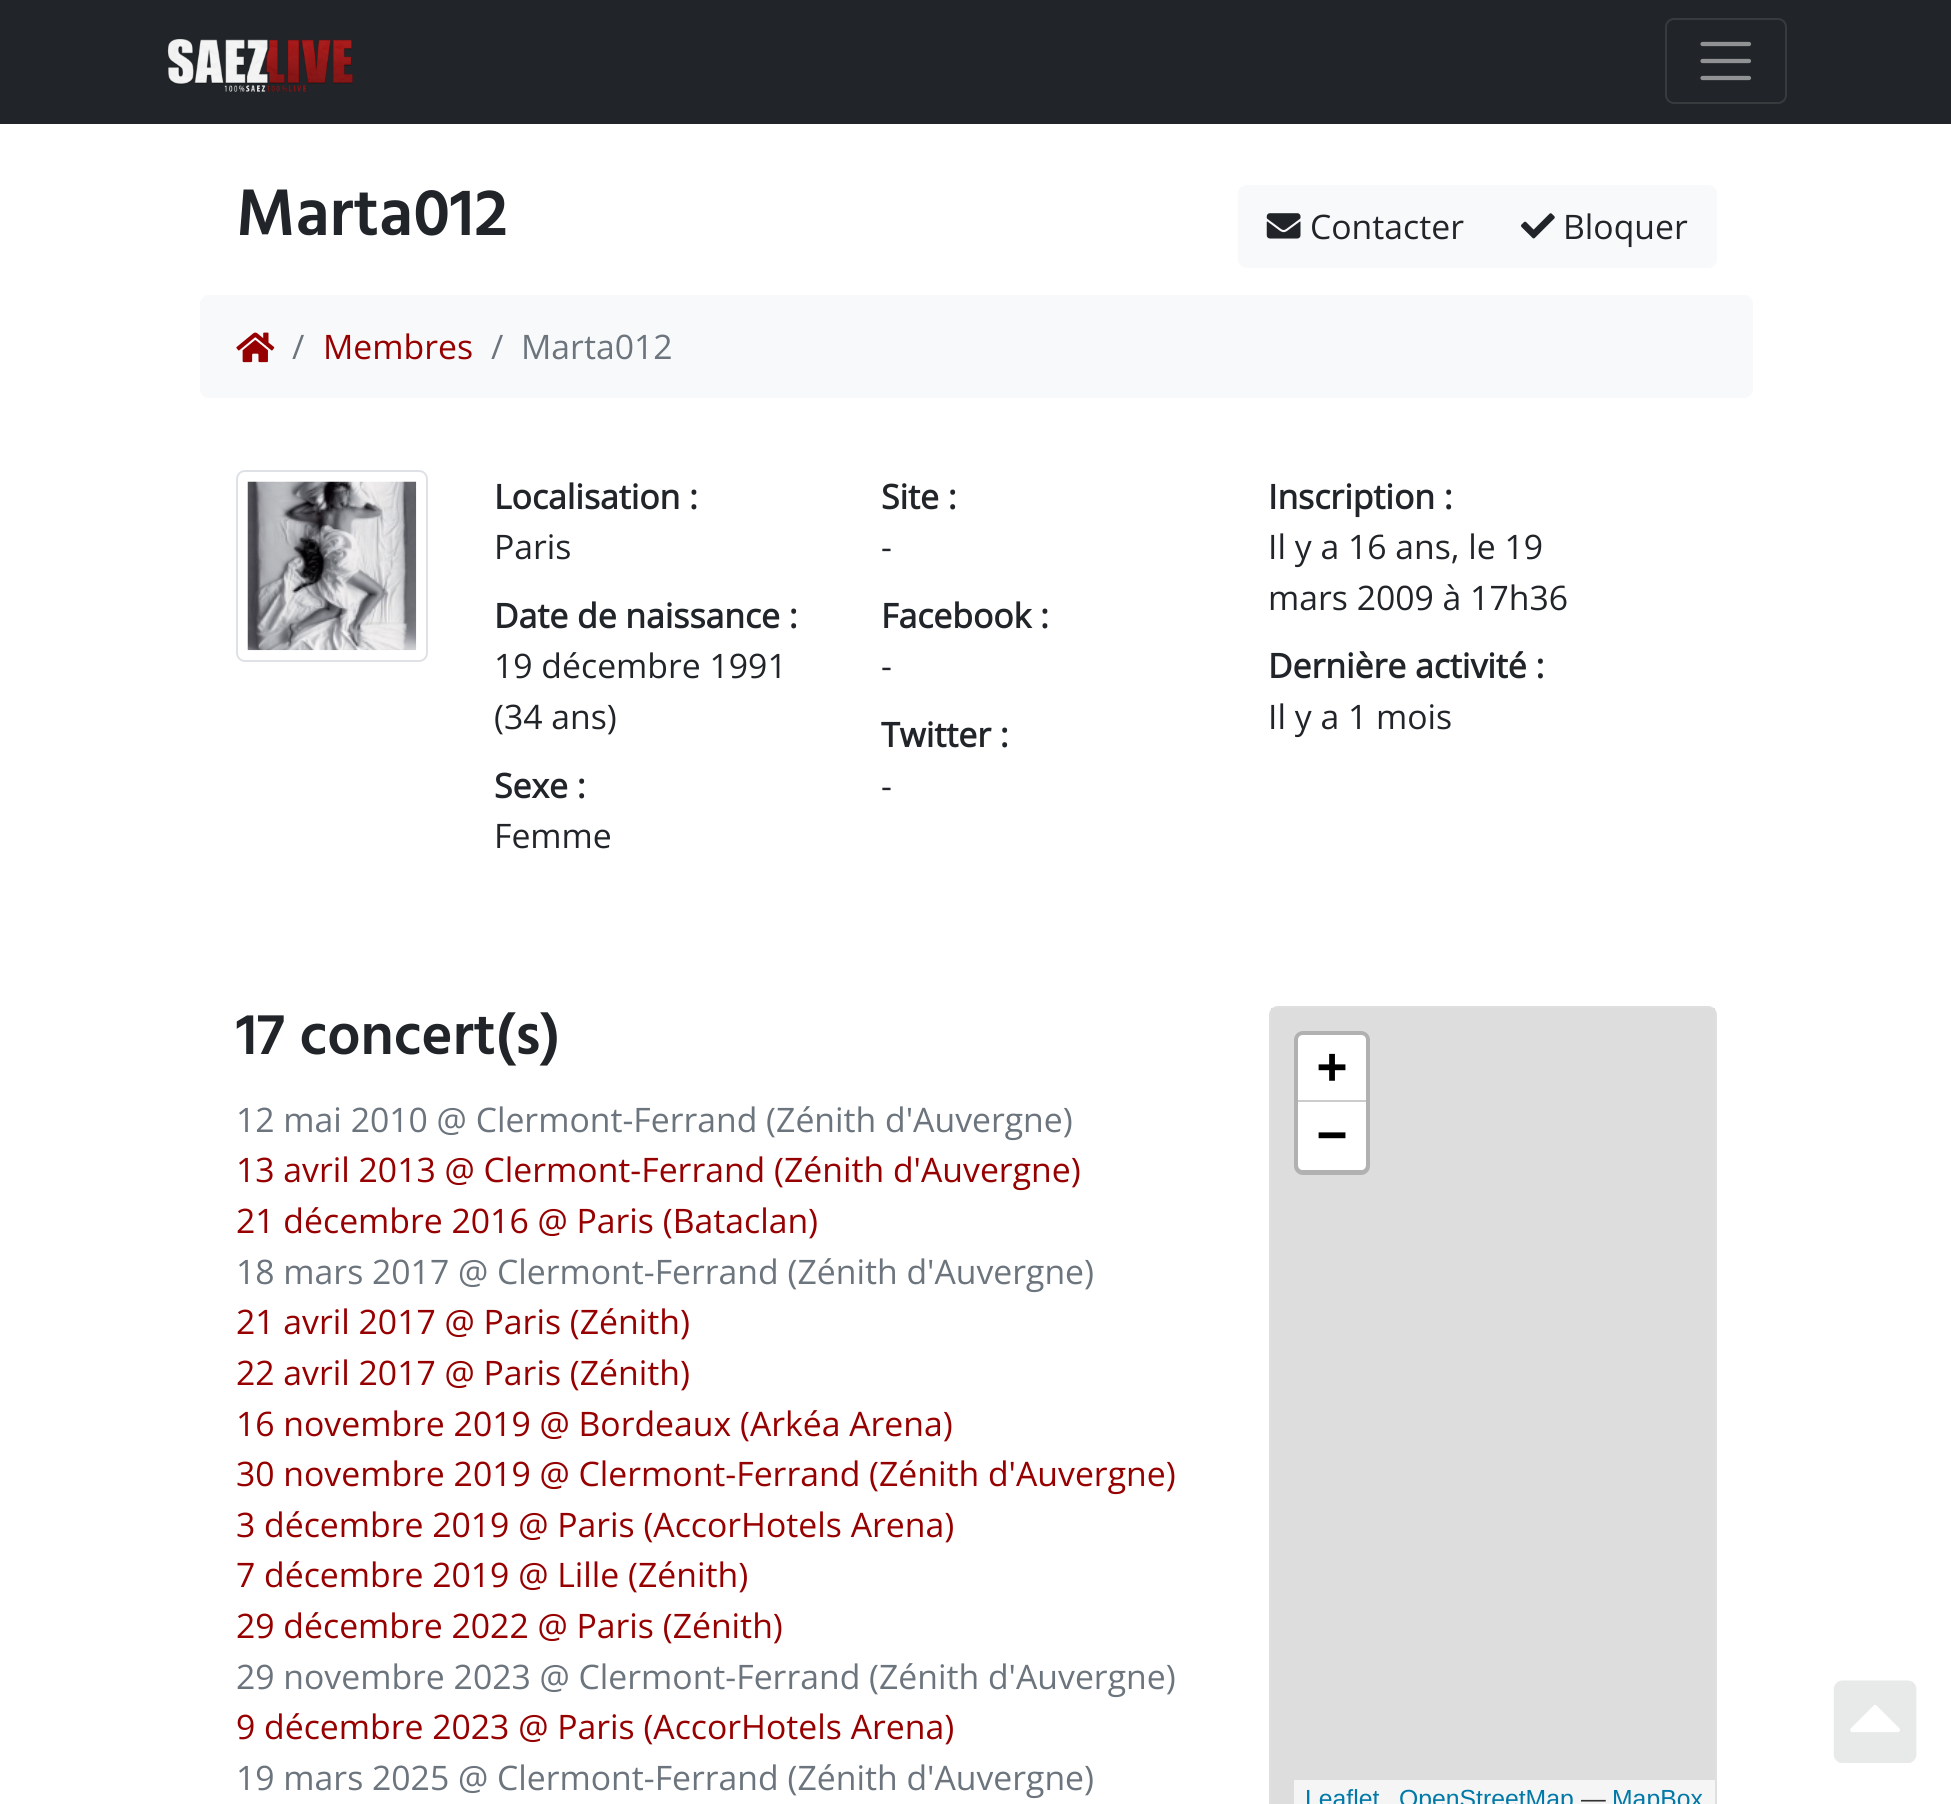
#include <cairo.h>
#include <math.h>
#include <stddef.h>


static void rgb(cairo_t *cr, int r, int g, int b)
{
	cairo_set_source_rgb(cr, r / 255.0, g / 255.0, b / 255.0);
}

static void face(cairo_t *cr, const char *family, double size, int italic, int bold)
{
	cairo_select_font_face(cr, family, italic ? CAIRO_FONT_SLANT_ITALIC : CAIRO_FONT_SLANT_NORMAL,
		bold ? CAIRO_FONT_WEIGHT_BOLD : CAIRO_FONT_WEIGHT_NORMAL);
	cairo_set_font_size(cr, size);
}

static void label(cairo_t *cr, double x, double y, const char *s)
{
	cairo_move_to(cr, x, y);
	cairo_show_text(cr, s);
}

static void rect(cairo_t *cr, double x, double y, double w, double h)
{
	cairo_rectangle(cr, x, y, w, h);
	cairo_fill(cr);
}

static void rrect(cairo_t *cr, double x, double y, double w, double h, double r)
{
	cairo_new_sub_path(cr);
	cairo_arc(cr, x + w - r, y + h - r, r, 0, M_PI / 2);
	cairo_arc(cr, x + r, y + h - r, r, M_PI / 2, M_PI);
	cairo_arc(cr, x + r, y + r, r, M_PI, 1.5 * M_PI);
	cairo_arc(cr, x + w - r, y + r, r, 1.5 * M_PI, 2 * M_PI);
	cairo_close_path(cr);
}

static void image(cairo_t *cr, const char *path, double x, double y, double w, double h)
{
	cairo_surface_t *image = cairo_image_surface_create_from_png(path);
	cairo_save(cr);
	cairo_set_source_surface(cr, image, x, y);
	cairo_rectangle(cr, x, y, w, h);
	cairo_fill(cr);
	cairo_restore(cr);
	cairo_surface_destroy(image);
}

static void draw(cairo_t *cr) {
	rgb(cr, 33, 37, 41);
	cairo_paint(cr);
	image(cr, "image0.png", 167, 39, 186, 53);
	rrect(cr, 1666, 19, 120, 84, 8);
	rgb(cr, 55, 59, 62);
	cairo_stroke(cr);
	cairo_new_path(cr);
	cairo_move_to(cr, 1702.5, 44);
	cairo_line_to(cr, 1749, 44);
	cairo_move_to(cr, 1702.5, 61);
	cairo_line_to(cr, 1749, 61);
	cairo_move_to(cr, 1702.5, 78);
	cairo_line_to(cr, 1749, 78);
	rgb(cr, 144, 146, 148);
	cairo_set_line_width(cr, 4.2);
	cairo_set_line_cap(cr, CAIRO_LINE_CAP_ROUND);
	cairo_stroke(cr);
	rgb(cr, 255, 255, 255);
	rect(cr, 0, 124, 1951, 1680);
	face(cr, "Hind SemiBold", 67.5, 0, 0);
	rgb(cr, 33, 37, 41);
	label(cr, 236, 235, "Marta012");
	rgb(cr, 248, 249, 250);
	cairo_new_path(cr);
	cairo_move_to(cr, 1247, 185);
	cairo_line_to(cr, 1494, 185);
	cairo_line_to(cr, 1494, 268);
	cairo_line_to(cr, 1247, 268);
	cairo_curve_to(cr, 1242, 268, 1238, 264, 1238, 259);
	cairo_line_to(cr, 1238, 194);
	cairo_curve_to(cr, 1238, 189, 1242, 185, 1247, 185);
	cairo_close_path(cr);
	cairo_fill(cr);
	image(cr, "image1.png", 1266, 213, 35, 26);
	face(cr, "Open Sans", 33.75, 0, 0);
	rgb(cr, 33, 37, 41);
	label(cr, 1310, 239, "Contacter");
	rgb(cr, 248, 249, 250);
	cairo_new_path(cr);
	cairo_move_to(cr, 1492, 185);
	cairo_line_to(cr, 1708, 185);
	cairo_curve_to(cr, 1713, 185, 1717, 189, 1717, 194);
	cairo_line_to(cr, 1717, 259);
	cairo_curve_to(cr, 1717, 264, 1713, 268, 1708, 268);
	cairo_line_to(cr, 1492, 268);
	cairo_close_path(cr);
	cairo_fill(cr);
	image(cr, "image2.png", 1521, 213, 34, 26);
	rgb(cr, 33, 37, 41);
	label(cr, 1563, 239, "Bloquer");
	rgb(cr, 248, 249, 250);
	rrect(cr, 200, 295, 1553, 103, 9);
	cairo_fill(cr);
	image(cr, "image3.png", 236, 332, 39, 31);
	rgb(cr, 108, 117, 125);
	label(cr, 292, 359, "/");
	rgb(cr, 151, 0, 0);
	label(cr, 323, 359, "Membres");
	rgb(cr, 108, 117, 125);
	label(cr, 491, 359, "/");
	label(cr, 521, 359, "Marta012");
	rrect(cr, 237, 471, 190, 190, 8);
	rgb(cr, 222, 226, 230);
	cairo_set_line_width(cr, 2);
	cairo_set_line_cap(cr, CAIRO_LINE_CAP_BUTT);
	cairo_stroke(cr);
	image(cr, "image4.png", 247, 481, 170, 170);
	face(cr, "Open Sans", 33.75, 0, 1);
	rgb(cr, 33, 37, 41);
	label(cr, 494, 509, "Localisation :");
	face(cr, "Open Sans", 33.75, 0, 0);
	label(cr, 494, 559, "Paris");
	face(cr, "Open Sans", 33.75, 0, 1);
	label(cr, 494, 628, "Date de naissance :");
	face(cr, "Open Sans", 33.75, 0, 0);
	label(cr, 494, 678, "19 décembre 1991");
	label(cr, 494, 729, "(34 ans)");
	face(cr, "Open Sans", 33.75, 0, 1);
	label(cr, 494, 798, "Sexe :");
	face(cr, "Open Sans", 33.75, 0, 0);
	label(cr, 494, 848, "Femme");
	face(cr, "Open Sans", 33.75, 0, 1);
	label(cr, 881, 509, "Site :");
	face(cr, "Open Sans", 33.75, 0, 0);
	label(cr, 881, 559, "-");
	face(cr, "Open Sans", 33.75, 0, 1);
	label(cr, 881, 628, "Facebook :");
	face(cr, "Open Sans", 33.75, 0, 0);
	label(cr, 881, 678, "-");
	face(cr, "Open Sans", 33.75, 0, 1);
	label(cr, 881, 747, "Twitter :");
	face(cr, "Open Sans", 33.75, 0, 0);
	label(cr, 881, 798, "-");
	face(cr, "Open Sans", 33.75, 0, 1);
	label(cr, 1268, 509, "Inscription :");
	face(cr, "Open Sans", 33.75, 0, 0);
	label(cr, 1268, 559, "Il y a 16 ans, le 19");
	label(cr, 1268, 610, "mars 2009 à 17h36");
	face(cr, "Open Sans", 33.75, 0, 1);
	label(cr, 1268, 678, "Dernière activité :");
	face(cr, "Open Sans", 33.75, 0, 0);
	label(cr, 1268, 729, "Il y a 1 mois");
	face(cr, "Hind SemiBold", 59, 0, 0);
	label(cr, 236, 1054, "17 concert(s)");
	face(cr, "Open Sans", 33.75, 0, 0);
	rgb(cr, 108, 117, 125);
	label(cr, 236, 1132, "12 mai 2010 @ Clermont-Ferrand (Zénith d'Auvergne)");
	rgb(cr, 151, 0, 0);
	label(cr, 236, 1182, "13 avril 2013 @ Clermont-Ferrand (Zénith d'Auvergne)");
	label(cr, 236, 1233, "21 décembre 2016 @ Paris (Bataclan)");
	rgb(cr, 108, 117, 125);
	label(cr, 236, 1284, "18 mars 2017 @ Clermont-Ferrand (Zénith d'Auvergne)");
	rgb(cr, 151, 0, 0);
	label(cr, 236, 1334, "21 avril 2017 @ Paris (Zénith)");
	label(cr, 236, 1385, "22 avril 2017 @ Paris (Zénith)");
	label(cr, 236, 1436, "16 novembre 2019 @ Bordeaux (Arkéa Arena)");
	label(cr, 236, 1486, "30 novembre 2019 @ Clermont-Ferrand (Zénith d'Auvergne)");
	label(cr, 236, 1537, "3 décembre 2019 @ Paris (AccorHotels Arena)");
	label(cr, 236, 1587, "7 décembre 2019 @ Lille (Zénith)");
	label(cr, 236, 1638, "29 décembre 2022 @ Paris (Zénith)");
	rgb(cr, 108, 117, 125);
	label(cr, 236, 1689, "29 novembre 2023 @ Clermont-Ferrand (Zénith d'Auvergne)");
	rgb(cr, 151, 0, 0);
	label(cr, 236, 1739, "9 décembre 2023 @ Paris (AccorHotels Arena)");
	rgb(cr, 108, 117, 125);
	label(cr, 236, 1790, "19 mars 2025 @ Clermont-Ferrand (Zénith d'Auvergne)");
	rrect(cr, 1270, 1007, 446, 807, 8);
	rgb(cr, 223, 223, 223);
	cairo_stroke(cr);
	rgb(cr, 221, 221, 221);
	rect(cr, 1271, 1008, 444, 796);
	rrect(cr, 1296.5, 1033.5, 71, 139, 6.5);
	rgb(cr, 177, 177, 177);
	cairo_set_line_width(cr, 5);
	cairo_stroke(cr);
	rgb(cr, 255, 255, 255);
	cairo_new_path(cr);
	cairo_move_to(cr, 1303, 1035);
	cairo_line_to(cr, 1361, 1035);
	cairo_curve_to(cr, 1364, 1035, 1366, 1037, 1366, 1040);
	cairo_line_to(cr, 1366, 1103);
	cairo_line_to(cr, 1298, 1103);
	cairo_line_to(cr, 1298, 1040);
	cairo_curve_to(cr, 1298, 1037, 1300, 1035, 1303, 1035);
	cairo_close_path(cr);
	cairo_fill(cr);
	rgb(cr, 204, 204, 204);
	rect(cr, 1298, 1100, 68, 2);
	face(cr, "DejaVu Sans Mono", 50, 0, 1);
	rgb(cr, 0, 0, 0);
	label(cr, 1317, 1083, "+");
	rgb(cr, 255, 255, 255);
	cairo_new_path(cr);
	cairo_move_to(cr, 1298, 1103);
	cairo_line_to(cr, 1366, 1103);
	cairo_line_to(cr, 1366, 1165);
	cairo_curve_to(cr, 1366, 1168, 1364, 1170, 1361, 1170);
	cairo_line_to(cr, 1303, 1170);
	cairo_curve_to(cr, 1300, 1170, 1298, 1168, 1298, 1165);
	cairo_close_path(cr);
	cairo_fill(cr);
	rgb(cr, 0, 0, 0);
	label(cr, 1317, 1151, "−");
	rgb(cr, 245, 245, 245);
	rect(cr, 1294, 1780, 421, 24);
	face(cr, "Liberation Sans", 24.75, 0, 0);
	rgb(cr, 0, 120, 168);
	label(cr, 1305, 1807, "Leaflet");
	label(cr, 1399, 1807, "OpenStreetMap");
	rgb(cr, 51, 51, 51);
	label(cr, 1581, 1807, "—");
	rgb(cr, 0, 120, 168);
	label(cr, 1612, 1807, "MapBox");
	image(cr, "image5.png", 1833, 1680, 84, 83);
}

int main(void) {
	cairo_surface_t *surface = cairo_image_surface_create(CAIRO_FORMAT_RGB24, 1951, 1804);
	cairo_t *cr = cairo_create(surface);
	cairo_font_options_t *options = cairo_font_options_create();
	cairo_font_options_set_hint_metrics(options, CAIRO_HINT_METRICS_OFF);
	cairo_font_options_set_hint_style(options, CAIRO_HINT_STYLE_NONE);
	cairo_set_font_options(cr, options);
	cairo_set_miter_limit(cr, 4);
	draw(cr);
	cairo_surface_write_to_png(surface, "render.png");
	cairo_font_options_destroy(options);
	cairo_destroy(cr);
	cairo_surface_destroy(surface);
	return 0;
}
